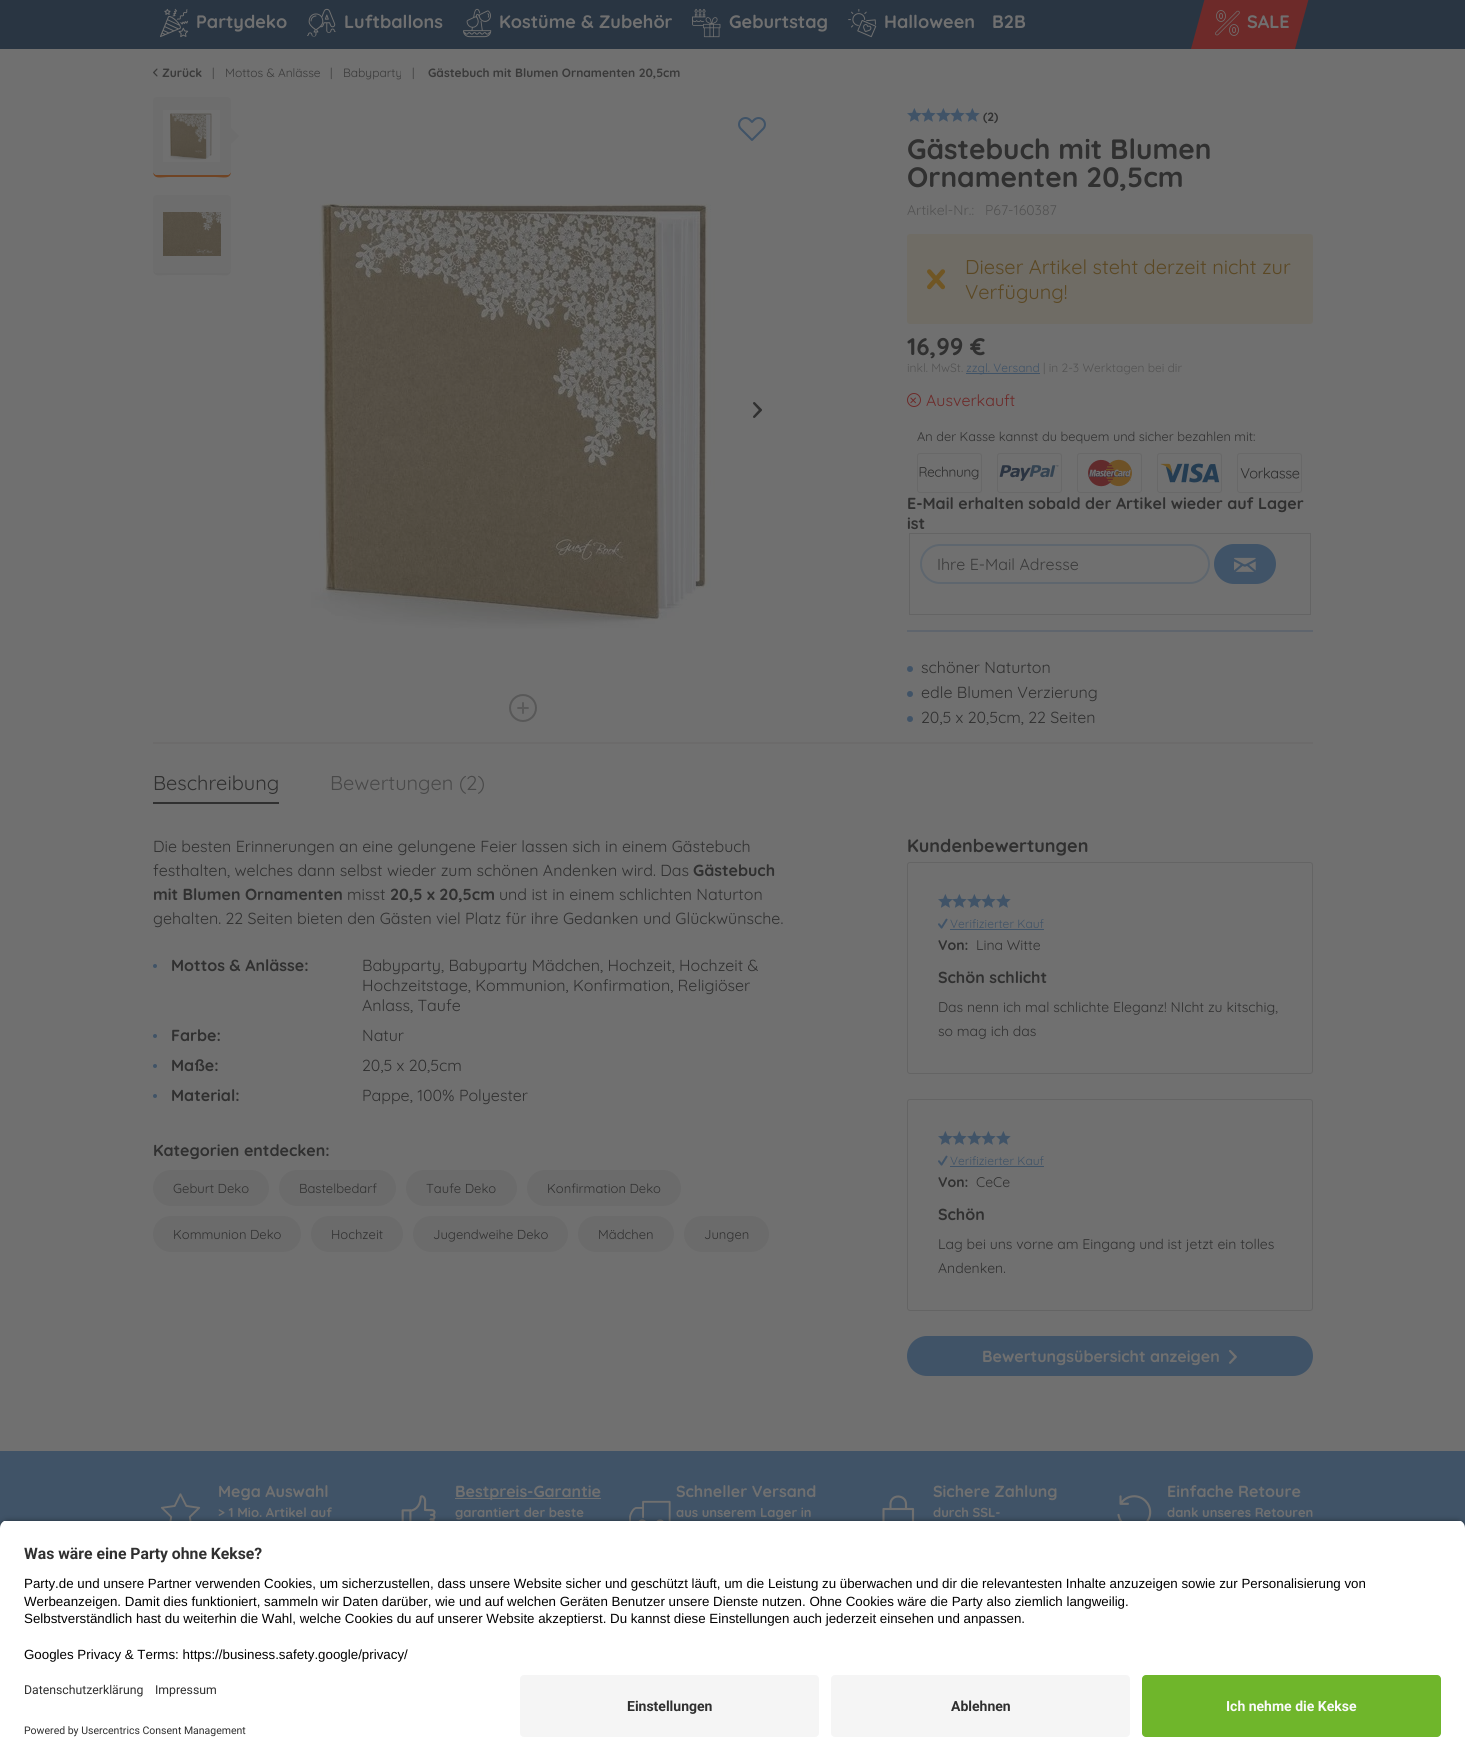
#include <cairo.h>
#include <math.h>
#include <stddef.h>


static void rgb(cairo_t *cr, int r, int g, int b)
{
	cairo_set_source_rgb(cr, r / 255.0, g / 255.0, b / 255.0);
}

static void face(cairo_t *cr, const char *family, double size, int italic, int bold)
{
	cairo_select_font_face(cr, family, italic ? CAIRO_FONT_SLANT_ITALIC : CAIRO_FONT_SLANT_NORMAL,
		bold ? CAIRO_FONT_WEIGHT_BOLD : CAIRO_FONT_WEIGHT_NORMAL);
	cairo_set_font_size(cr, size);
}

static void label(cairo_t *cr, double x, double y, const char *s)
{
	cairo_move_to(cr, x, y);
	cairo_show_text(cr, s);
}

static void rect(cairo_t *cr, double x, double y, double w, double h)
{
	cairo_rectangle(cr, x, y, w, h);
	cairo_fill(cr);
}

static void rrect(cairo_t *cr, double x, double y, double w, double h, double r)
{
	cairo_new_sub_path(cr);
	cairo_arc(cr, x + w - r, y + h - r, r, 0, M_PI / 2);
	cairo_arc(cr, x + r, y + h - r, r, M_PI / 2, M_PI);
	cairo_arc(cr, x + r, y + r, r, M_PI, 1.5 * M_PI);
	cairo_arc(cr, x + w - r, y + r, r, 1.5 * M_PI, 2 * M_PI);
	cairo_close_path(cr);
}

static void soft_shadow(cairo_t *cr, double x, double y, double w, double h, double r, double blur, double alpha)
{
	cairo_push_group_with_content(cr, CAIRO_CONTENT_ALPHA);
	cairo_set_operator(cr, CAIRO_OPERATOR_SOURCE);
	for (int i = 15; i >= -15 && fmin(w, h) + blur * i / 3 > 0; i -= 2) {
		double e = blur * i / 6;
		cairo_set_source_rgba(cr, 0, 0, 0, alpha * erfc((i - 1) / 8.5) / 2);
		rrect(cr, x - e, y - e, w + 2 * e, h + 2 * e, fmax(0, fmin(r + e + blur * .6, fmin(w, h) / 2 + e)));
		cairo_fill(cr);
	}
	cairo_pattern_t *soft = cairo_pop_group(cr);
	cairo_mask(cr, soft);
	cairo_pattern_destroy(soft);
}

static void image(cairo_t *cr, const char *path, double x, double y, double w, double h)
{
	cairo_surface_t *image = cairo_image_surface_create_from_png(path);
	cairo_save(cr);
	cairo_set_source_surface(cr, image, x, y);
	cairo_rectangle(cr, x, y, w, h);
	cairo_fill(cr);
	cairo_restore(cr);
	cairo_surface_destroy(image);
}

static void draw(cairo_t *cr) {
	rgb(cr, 112, 112, 112);
	cairo_paint(cr);
	rgb(cr, 41, 53, 66);
	rect(cr, 0, 0, 1465, 49);
	image(cr, "image0.png", 160, 8, 29, 30);
	face(cr, "Quicksand", 18, 0, 1);
	rgb(cr, 112, 112, 112);
	label(cr, 196, 28, "Partydeko");
	image(cr, "image1.png", 307, 8, 29, 29);
	label(cr, 344, 28, "Luftballons");
	image(cr, "image2.png", 463, 8, 29, 30);
	label(cr, 499, 28, "Kostüme & Zubehör");
	image(cr, "image3.png", 692, 8, 29, 30);
	label(cr, 729, 28, "Geburtstag");
	image(cr, "image4.png", 848, 9, 29, 29);
	label(cr, 884, 28, "Halloween");
	label(cr, 992, 28, "B2B");
	rgb(cr, 109, 42, 41);
	cairo_new_path(cr);
	cairo_move_to(cr, 1206, -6);
	cairo_line_to(cr, 1310, -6);
	cairo_line_to(cr, 1295, 49);
	cairo_line_to(cr, 1191, 49);
	cairo_close_path(cr);
	cairo_fill(cr);
	image(cr, "image5.png", 1215, 10, 25, 26);
	rgb(cr, 112, 112, 112);
	label(cr, 1247, 28, "SALE");
	image(cr, "image6.png", 153, 68, 5, 9);
	face(cr, "Quicksand", 12, 0, 1);
	rgb(cr, 58, 58, 58);
	label(cr, 162, 77, "Zurück");
	face(cr, "Quicksand", 12, 0, 0);
	label(cr, 212, 77, "|");
	label(cr, 225, 77, "Mottos & Anlässe");
	label(cr, 330, 77, "|");
	label(cr, 343, 77, "Babyparty");
	label(cr, 412, 77, "|");
	face(cr, "Quicksand", 12, 0, 1);
	label(cr, 428, 77, "Gästebuch mit Blumen Ornamenten 20,5cm");
	rgb(cr, 112, 68, 36);
	cairo_new_path(cr);
	cairo_move_to(cr, 153, 171);
	cairo_curve_to(cr, 153, 180, 161, 177, 169, 177);
	cairo_line_to(cr, 215, 177);
	cairo_curve_to(cr, 223, 177, 231, 180, 231, 171);
	cairo_curve_to(cr, 231, 173, 229, 175, 227, 175);
	cairo_line_to(cr, 157, 175);
	cairo_curve_to(cr, 155, 175, 153, 173, 153, 171);
	cairo_close_path(cr);
	cairo_fill(cr);
	rgb(cr, 109, 109, 109);
	rrect(cr, 153, 97, 78, 78, 4);
	cairo_fill(cr);
	image(cr, "image7.png", 163, 110, 57, 52);
	cairo_new_path(cr);
	cairo_move_to(cr, 231, 144);
	cairo_line_to(cr, 231, 128);
	cairo_line_to(cr, 239, 136);
	cairo_close_path(cr);
	cairo_fill(cr);
	rgb(cr, 107, 107, 107);
	cairo_new_path(cr);
	cairo_move_to(cr, 153, 269);
	cairo_curve_to(cr, 153, 278, 161, 275, 169, 275);
	cairo_line_to(cr, 215, 275);
	cairo_curve_to(cr, 223, 275, 231, 278, 231, 269);
	cairo_curve_to(cr, 231, 271, 229, 273, 227, 273);
	cairo_line_to(cr, 157, 273);
	cairo_curve_to(cr, 155, 273, 153, 271, 153, 269);
	cairo_close_path(cr);
	cairo_fill(cr);
	rgb(cr, 109, 109, 109);
	rrect(cr, 153, 195, 78, 78, 4);
	cairo_fill(cr);
	image(cr, "image8.png", 163, 212, 58, 44);
	image(cr, "image9.png", 738, 117, 28, 24);
	image(cr, "image10.png", 311, 201, 404, 428);
	cairo_arc(cr, 523, 708, 13, 0, 2 * M_PI);
	rgb(cr, 99, 99, 99);
	cairo_stroke(cr);
	image(cr, "image11.png", 517, 702, 12, 12);
	cairo_arc(cr, 523, 708, 13, 0, 2 * M_PI);
	cairo_set_source_rgba(cr, 0.188, 0.188, 0.188, 0.2);
	cairo_stroke(cr);
	image(cr, "image12.png", 517, 702, 12, 12);
	image(cr, "image13.png", 753, 402, 9, 16);
	image(cr, "image14.png", 907, 108, 15, 14);
	image(cr, "image15.png", 921, 108, 15, 14);
	image(cr, "image14.png", 936, 108, 15, 14);
	image(cr, "image15.png", 950, 108, 15, 14);
	image(cr, "image14.png", 965, 108, 15, 14);
	rgb(cr, 48, 48, 48);
	label(cr, 983, 121, "(2)");
	face(cr, "Quicksand", 28, 0, 1);
	label(cr, 907, 159, "Gästebuch mit Blumen");
	label(cr, 907, 187, "Ornamenten 20,5cm");
	face(cr, "Quicksand", 14, 0, 0);
	rgb(cr, 82, 82, 82);
	label(cr, 907, 215, "Artikel-Nr.:");
	label(cr, 985, 215, "P67-160387");
	rgb(cr, 111, 108, 101);
	rrect(cr, 907, 234, 406, 90, 3);
	cairo_fill(cr);
	image(cr, "image16.png", 927, 269, 19, 21);
	face(cr, "Quicksand", 20, 0, 0);
	rgb(cr, 91, 72, 36);
	label(cr, 965, 274, "Dieser Artikel steht derzeit nicht zur");
	label(cr, 965, 299, "Verfügung!");
	face(cr, "Quicksand", 24, 0, 1);
	rgb(cr, 48, 48, 48);
	label(cr, 907, 355, "16,99 €");
	face(cr, "Quicksand", 12, 0, 0);
	rgb(cr, 82, 82, 82);
	label(cr, 907, 372, "inkl. MwSt.");
	rgb(cr, 64, 83, 103);
	rect(cr, 966, 373, 74, 1);
	label(cr, 966, 372, "zzgl. Versand");
	rgb(cr, 82, 82, 82);
	label(cr, 1043, 372, "| in 2-3 Werktagen bei dir");
	cairo_new_path(cr);
	cairo_arc(cr, 914, 400, 6.5, 0, 2 * M_PI);
	rgb(cr, 109, 42, 41);
	cairo_set_line_width(cr, 1);
	cairo_stroke(cr);
	face(cr, "DejaVu Sans", 10, 0, 0);
	label(cr, 909, 404, "✕");
	face(cr, "Quicksand", 16, 0, 0);
	label(cr, 926, 406, "Ausverkauft");
	face(cr, "Quicksand", 12.8, 0, 0);
	rgb(cr, 48, 48, 48);
	label(cr, 917, 441, "An der Kasse kannst du bequem und sicher bezahlen mit:");
	rrect(cr, 917.5, 453.5, 64, 39, 2.5);
	rgb(cr, 104, 104, 104);
	cairo_stroke(cr);
	image(cr, "image17.png", 919, 466, 60, 14);
	rrect(cr, 997.5, 453.5, 64, 39, 2.5);
	cairo_stroke(cr);
	image(cr, "image18.png", 999, 465, 60, 16);
	rrect(cr, 1077.5, 453.5, 64, 39, 2.5);
	cairo_stroke(cr);
	image(cr, "image19.png", 1088, 459, 44, 28);
	rrect(cr, 1157.5, 453.5, 64, 39, 2.5);
	cairo_stroke(cr);
	image(cr, "image20.png", 1160, 463, 60, 20);
	rrect(cr, 1237.5, 453.5, 64, 39, 2.5);
	cairo_stroke(cr);
	image(cr, "image21.png", 1240, 467, 60, 12);
	face(cr, "Quicksand", 16, 0, 1);
	rgb(cr, 48, 48, 48);
	label(cr, 907, 509, "E-Mail erhalten sobald der Artikel wieder auf Lager");
	label(cr, 907, 529, "ist");
	cairo_rectangle(cr, 909.5, 533.5, 401, 81);
	rgb(cr, 100, 100, 100);
	cairo_stroke(cr);
	rrect(cr, 921, 545, 288, 38, 19);
	rgb(cr, 94, 102, 110);
	cairo_set_line_width(cr, 2);
	cairo_stroke(cr);
	face(cr, "Quicksand", 16, 0, 0);
	rgb(cr, 58, 58, 58);
	label(cr, 937, 570, "Ihre E-Mail Adresse");
	rgb(cr, 64, 83, 103);
	rrect(cr, 1214, 544, 62, 40, 20);
	cairo_fill(cr);
	image(cr, "image22.png", 1234, 557, 22, 15);
	rgb(cr, 95, 101, 109);
	rect(cr, 907, 630, 406, 2);
	rgb(cr, 64, 83, 103);
	cairo_arc(cr, 910, 669, 3, 0, 2 * M_PI);
	cairo_fill(cr);
	rgb(cr, 48, 48, 48);
	label(cr, 921, 673, "schöner Naturton");
	rgb(cr, 64, 83, 103);
	cairo_new_path(cr);
	cairo_arc(cr, 910, 694, 3, 0, 2 * M_PI);
	cairo_fill(cr);
	rgb(cr, 48, 48, 48);
	label(cr, 921, 698, "edle Blumen Verzierung");
	rgb(cr, 64, 83, 103);
	cairo_new_path(cr);
	cairo_arc(cr, 910, 719, 3, 0, 2 * M_PI);
	cairo_fill(cr);
	rgb(cr, 48, 48, 48);
	label(cr, 921, 723, "20,5 x 20,5cm, 22 Seiten");
	rgb(cr, 108, 107, 107);
	rect(cr, 153, 742, 1160, 2);
	rgb(cr, 48, 48, 48);
	rect(cr, 153, 802, 126, 2);
	face(cr, "Quicksand", 20, 0, 0);
	label(cr, 153, 790, "Beschreibung");
	rgb(cr, 73, 73, 73);
	label(cr, 330, 790, "Bewertungen (2)");
	face(cr, "Quicksand", 16, 0, 0);
	rgb(cr, 48, 48, 48);
	label(cr, 153, 852, "Die besten Erinnerungen an eine gelungene Feier lassen sich in einem Gästebuch");
	label(cr, 153, 876, "festhalten, welches dann selbst wieder zum schönen Andenken wird. Das");
	face(cr, "Quicksand", 16, 0, 1);
	label(cr, 693, 876, "Gästebuch");
	label(cr, 153, 900, "mit Blumen Ornamenten");
	face(cr, "Quicksand", 16, 0, 0);
	label(cr, 347, 900, "misst");
	face(cr, "Quicksand", 16, 0, 1);
	label(cr, 390, 900, "20,5 x 20,5cm");
	face(cr, "Quicksand", 16, 0, 0);
	label(cr, 499, 900, "und ist in einem schlichten Naturton");
	label(cr, 153, 924, "gehalten. 22 Seiten bieten den Gästen viel Platz für ihre Gedanken und Glückwünsche.");
	rgb(cr, 64, 83, 103);
	cairo_new_path(cr);
	cairo_arc(cr, 155, 966, 2, 0, 2 * M_PI);
	cairo_fill(cr);
	face(cr, "Quicksand", 16, 0, 1);
	rgb(cr, 48, 48, 48);
	label(cr, 171, 971, "Mottos & Anlässe:");
	face(cr, "Quicksand", 16, 0, 0);
	label(cr, 362, 971, "Babyparty, Babyparty Mädchen, Hochzeit, Hochzeit &");
	label(cr, 362, 991, "Hochzeitstage, Kommunion, Konfirmation, Religiöser");
	label(cr, 362, 1011, "Anlass, Taufe");
	rgb(cr, 64, 83, 103);
	cairo_new_path(cr);
	cairo_arc(cr, 155, 1036, 2, 0, 2 * M_PI);
	cairo_fill(cr);
	face(cr, "Quicksand", 16, 0, 1);
	rgb(cr, 48, 48, 48);
	label(cr, 171, 1041, "Farbe:");
	face(cr, "Quicksand", 16, 0, 0);
	label(cr, 362, 1041, "Natur");
	rgb(cr, 64, 83, 103);
	cairo_new_path(cr);
	cairo_arc(cr, 155, 1066, 2, 0, 2 * M_PI);
	cairo_fill(cr);
	face(cr, "Quicksand", 16, 0, 1);
	rgb(cr, 48, 48, 48);
	label(cr, 171, 1071, "Maße:");
	face(cr, "Quicksand", 16, 0, 0);
	label(cr, 362, 1071, "20,5 x 20,5cm");
	rgb(cr, 64, 83, 103);
	cairo_new_path(cr);
	cairo_arc(cr, 155, 1096, 2, 0, 2 * M_PI);
	cairo_fill(cr);
	face(cr, "Quicksand", 16, 0, 1);
	rgb(cr, 48, 48, 48);
	label(cr, 171, 1101, "Material:");
	face(cr, "Quicksand", 16, 0, 0);
	label(cr, 362, 1101, "Pappe, 100% Polyester");
	face(cr, "Quicksand", 16, 0, 1);
	label(cr, 153, 1156, "Kategorien entdecken:");
	rgb(cr, 107, 107, 107);
	rrect(cr, 153, 1170, 116, 36, 18);
	cairo_fill(cr);
	face(cr, "Quicksand", 13, 0, 0);
	rgb(cr, 48, 48, 48);
	label(cr, 173, 1193, "Geburt Deko");
	rgb(cr, 107, 107, 107);
	rrect(cr, 279, 1170, 117, 36, 18);
	cairo_fill(cr);
	rgb(cr, 48, 48, 48);
	label(cr, 299, 1193, "Bastelbedarf");
	rgb(cr, 107, 107, 107);
	rrect(cr, 406, 1170, 111, 36, 18);
	cairo_fill(cr);
	rgb(cr, 48, 48, 48);
	label(cr, 426, 1193, "Taufe Deko");
	rgb(cr, 107, 107, 107);
	rrect(cr, 527, 1170, 154, 36, 18);
	cairo_fill(cr);
	rgb(cr, 48, 48, 48);
	label(cr, 547, 1193, "Konfirmation Deko");
	rgb(cr, 107, 107, 107);
	rrect(cr, 153, 1216, 148, 36, 18);
	cairo_fill(cr);
	rgb(cr, 48, 48, 48);
	label(cr, 173, 1239, "Kommunion Deko");
	rgb(cr, 107, 107, 107);
	rrect(cr, 311, 1216, 92, 36, 18);
	cairo_fill(cr);
	rgb(cr, 48, 48, 48);
	label(cr, 331, 1239, "Hochzeit");
	rgb(cr, 107, 107, 107);
	rrect(cr, 413, 1216, 155, 36, 18);
	cairo_fill(cr);
	rgb(cr, 48, 48, 48);
	label(cr, 433, 1239, "Jugendweihe Deko");
	rgb(cr, 107, 107, 107);
	rrect(cr, 578, 1216, 96, 36, 18);
	cairo_fill(cr);
	rgb(cr, 48, 48, 48);
	label(cr, 598, 1239, "Mädchen");
	rgb(cr, 107, 107, 107);
	rrect(cr, 684, 1216, 85, 36, 18);
	cairo_fill(cr);
	rgb(cr, 48, 48, 48);
	label(cr, 704, 1239, "Jungen");
	face(cr, "Quicksand", 18, 0, 1);
	label(cr, 907, 852, "Kundenbewertungen");
	rrect(cr, 907.5, 862.5, 405, 211, 2.5);
	rgb(cr, 100, 100, 100);
	cairo_set_line_width(cr, 1);
	cairo_stroke(cr);
	image(cr, "image23.png", 938, 894, 15, 14);
	image(cr, "image24.png", 952, 894, 15, 14);
	image(cr, "image23.png", 967, 894, 15, 14);
	image(cr, "image24.png", 981, 894, 15, 14);
	image(cr, "image23.png", 996, 894, 15, 14);
	image(cr, "image25.png", 938, 918, 10, 11);
	face(cr, "Quicksand", 12, 0, 0);
	rgb(cr, 64, 83, 103);
	label(cr, 950, 928, "Verifizierter Kauf");
	rect(cr, 950, 929, 94, 1);
	face(cr, "Quicksand", 14, 0, 1);
	rgb(cr, 48, 48, 48);
	label(cr, 938, 950, "Von:");
	face(cr, "Quicksand", 14, 0, 0);
	label(cr, 976, 950, "Lina Witte");
	face(cr, "Quicksand", 16, 0, 1);
	label(cr, 938, 983, "Schön schlicht");
	face(cr, "Quicksand", 14, 0, 0);
	label(cr, 938, 1012, "Das nenn ich mal schlichte Eleganz! NIcht zu kitschig,");
	label(cr, 938, 1036, "so mag ich das");
	rrect(cr, 907.5, 1099.5, 405, 211, 2.5);
	rgb(cr, 100, 100, 100);
	cairo_stroke(cr);
	image(cr, "image23.png", 938, 1131, 15, 14);
	image(cr, "image24.png", 952, 1131, 15, 14);
	image(cr, "image23.png", 967, 1131, 15, 14);
	image(cr, "image24.png", 981, 1131, 15, 14);
	image(cr, "image23.png", 996, 1131, 15, 14);
	image(cr, "image25.png", 938, 1155, 10, 11);
	face(cr, "Quicksand", 12, 0, 0);
	rgb(cr, 64, 83, 103);
	label(cr, 950, 1165, "Verifizierter Kauf");
	rect(cr, 950, 1166, 94, 1);
	face(cr, "Quicksand", 14, 0, 1);
	rgb(cr, 48, 48, 48);
	label(cr, 938, 1187, "Von:");
	face(cr, "Quicksand", 14, 0, 0);
	label(cr, 976, 1187, "CeCe");
	face(cr, "Quicksand", 16, 0, 1);
	label(cr, 938, 1220, "Schön");
	face(cr, "Quicksand", 14, 0, 0);
	label(cr, 938, 1249, "Lag bei uns vorne am Eingang und ist jetzt ein tolles");
	label(cr, 938, 1273, "Andenken.");
	rgb(cr, 64, 83, 103);
	rrect(cr, 907, 1336, 406, 40, 20);
	cairo_fill(cr);
	face(cr, "Quicksand", 16, 0, 1);
	rgb(cr, 112, 112, 112);
	label(cr, 982, 1362, "Bewertungsübersicht anzeigen");
	image(cr, "image26.png", 1229, 1349, 8, 15);
	rgb(cr, 64, 83, 103);
	rect(cr, 0, 1451, 1465, 77);
	image(cr, "image27.png", 160, 1493, 41, 28);
	rgb(cr, 112, 112, 112);
	label(cr, 218, 1497, "Mega Auswahl");
	face(cr, "Quicksand", 13, 0, 1);
	label(cr, 218, 1517, "> 1 Mio. Artikel auf");
	image(cr, "image28.png", 401, 1495, 35, 26);
	rect(cr, 455, 1498, 146, 1);
	face(cr, "Quicksand", 16, 0, 1);
	label(cr, 455, 1497, "Bestpreis-Garantie");
	face(cr, "Quicksand", 13, 0, 1);
	label(cr, 455, 1517, "garantiert der beste");
	image(cr, "image29.png", 629, 1500, 42, 21);
	face(cr, "Quicksand", 16, 0, 1);
	label(cr, 676, 1497, "Schneller Versand");
	face(cr, "Quicksand", 13, 0, 1);
	label(cr, 676, 1517, "aus unserem Lager in");
	cairo_new_path(cr);
	cairo_move_to(cr, 913, 1509);
	cairo_line_to(cr, 883.5, 1509);
	cairo_line_to(cr, 883.5, 1528);
	cairo_line_to(cr, 913, 1528);
	cairo_close_path(cr);
	cairo_move_to(cr, 890.5, 1509);
	cairo_line_to(cr, 890.5, 1504);
	cairo_curve_to(cr, 890.5, 1499.5, 894, 1496.5, 898, 1496.5);
	cairo_curve_to(cr, 902.5, 1496.5, 906, 1499.5, 906, 1504);
	cairo_line_to(cr, 906, 1509);
	cairo_set_line_width(cr, 2.1);
	cairo_set_line_join(cr, CAIRO_LINE_JOIN_ROUND);
	cairo_stroke(cr);
	face(cr, "Quicksand", 16, 0, 1);
	label(cr, 933, 1497, "Sichere Zahlung");
	face(cr, "Quicksand", 13, 0, 1);
	label(cr, 933, 1517, "durch SSL-");
	image(cr, "image30.png", 1117, 1495, 35, 26);
	face(cr, "Quicksand", 16, 0, 1);
	label(cr, 1167, 1497, "Einfache Retoure");
	face(cr, "Quicksand", 13, 0, 1);
	label(cr, 1167, 1517, "dank unseres Retouren");
	rgb(cr, 0, 0, 0);
	soft_shadow(cr, 0, 1523, 1465, 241, 8, 3.5, 0.8);
	cairo_save(cr);
	cairo_new_path(cr);
	cairo_move_to(cr, 8, 1520);
	cairo_line_to(cr, 1457, 1520);
	cairo_curve_to(cr, 1461.5, 1520, 1465, 1523.5, 1465, 1528);
	cairo_line_to(cr, 1465, 1667);
	cairo_line_to(cr, 0, 1667);
	cairo_line_to(cr, 0, 1528);
	cairo_curve_to(cr, 0, 1523.5, 3.5, 1520, 8, 1520);
	cairo_close_path(cr);
	cairo_clip(cr);
	rgb(cr, 255, 255, 255);
	rect(cr, 0, 1521, 1465, 146);
	cairo_restore(cr);
	face(cr, "Roboto", 15.75, 0, 1);
	rgb(cr, 48, 48, 48);
	label(cr, 24, 1559, "Was wäre eine Party ohne Kekse?");
	face(cr, "Liberation Sans", 13.33, 0, 0);
	rgb(cr, 0, 0, 0);
	label(cr, 24, 1588, "Party.de und unsere Partner verwenden Cookies, um sicherzustellen, dass unsere Website sicher und geschützt läuft, um die Leistung zu überwachen und dir die relevantesten Inhalte anzuzeigen sowie zur Personalisierung von");
	label(cr, 24, 1606, "Werbeanzeigen. Damit dies funktioniert, sammeln wir Daten darüber, wie und auf welchen Geräten Benutzer unsere Dienste nutzen. Ohne Cookies wäre die Party also ziemlich langweilig.");
	label(cr, 24, 1623, "Selbstverständlich hast du weiterhin die Wahl, welche Cookies du auf unserer Website akzeptierst. Du kannst diese Einstellungen auch jederzeit einsehen und anpassen.");
	label(cr, 24, 1659, "Googles Privacy & Terms: https://business.safety.google/privacy/");
	rgb(cr, 255, 255, 255);
	rect(cr, 0, 1667, 1465, 94);
	face(cr, "Roboto", 12.25, 0, 0);
	rgb(cr, 48, 48, 48);
	label(cr, 24, 1694, "Datenschutzerklärung");
	label(cr, 155, 1694, "Impressum");
	face(cr, "Roboto", 10.5, 0, 0);
	label(cr, 24, 1734, "Powered by Usercentrics Consent Management");
	rgb(cr, 245, 245, 245);
	rrect(cr, 520, 1675, 299, 62, 4);
	cairo_fill(cr);
	face(cr, "Roboto", 14, 0, 1);
	rgb(cr, 48, 48, 48);
	label(cr, 627, 1711, "Einstellungen");
	rgb(cr, 245, 245, 245);
	rrect(cr, 831, 1675, 299, 62, 4);
	cairo_fill(cr);
	rgb(cr, 48, 48, 48);
	label(cr, 951, 1711, "Ablehnen");
	rgb(cr, 111, 182, 43);
	rrect(cr, 1142, 1675, 299, 62, 4);
	cairo_fill(cr);
	rgb(cr, 250, 250, 250);
	label(cr, 1226, 1711, "Ich nehme die Kekse");
}

int main(void) {
	cairo_surface_t *surface = cairo_image_surface_create(CAIRO_FORMAT_RGB24, 1465, 1761);
	cairo_t *cr = cairo_create(surface);
	cairo_font_options_t *options = cairo_font_options_create();
	cairo_font_options_set_hint_metrics(options, CAIRO_HINT_METRICS_OFF);
	cairo_font_options_set_hint_style(options, CAIRO_HINT_STYLE_NONE);
	cairo_set_font_options(cr, options);
	cairo_set_miter_limit(cr, 4);
	draw(cr);
	cairo_surface_write_to_png(surface, "render.png");
	cairo_font_options_destroy(options);
	cairo_destroy(cr);
	cairo_surface_destroy(surface);
	return 0;
}
